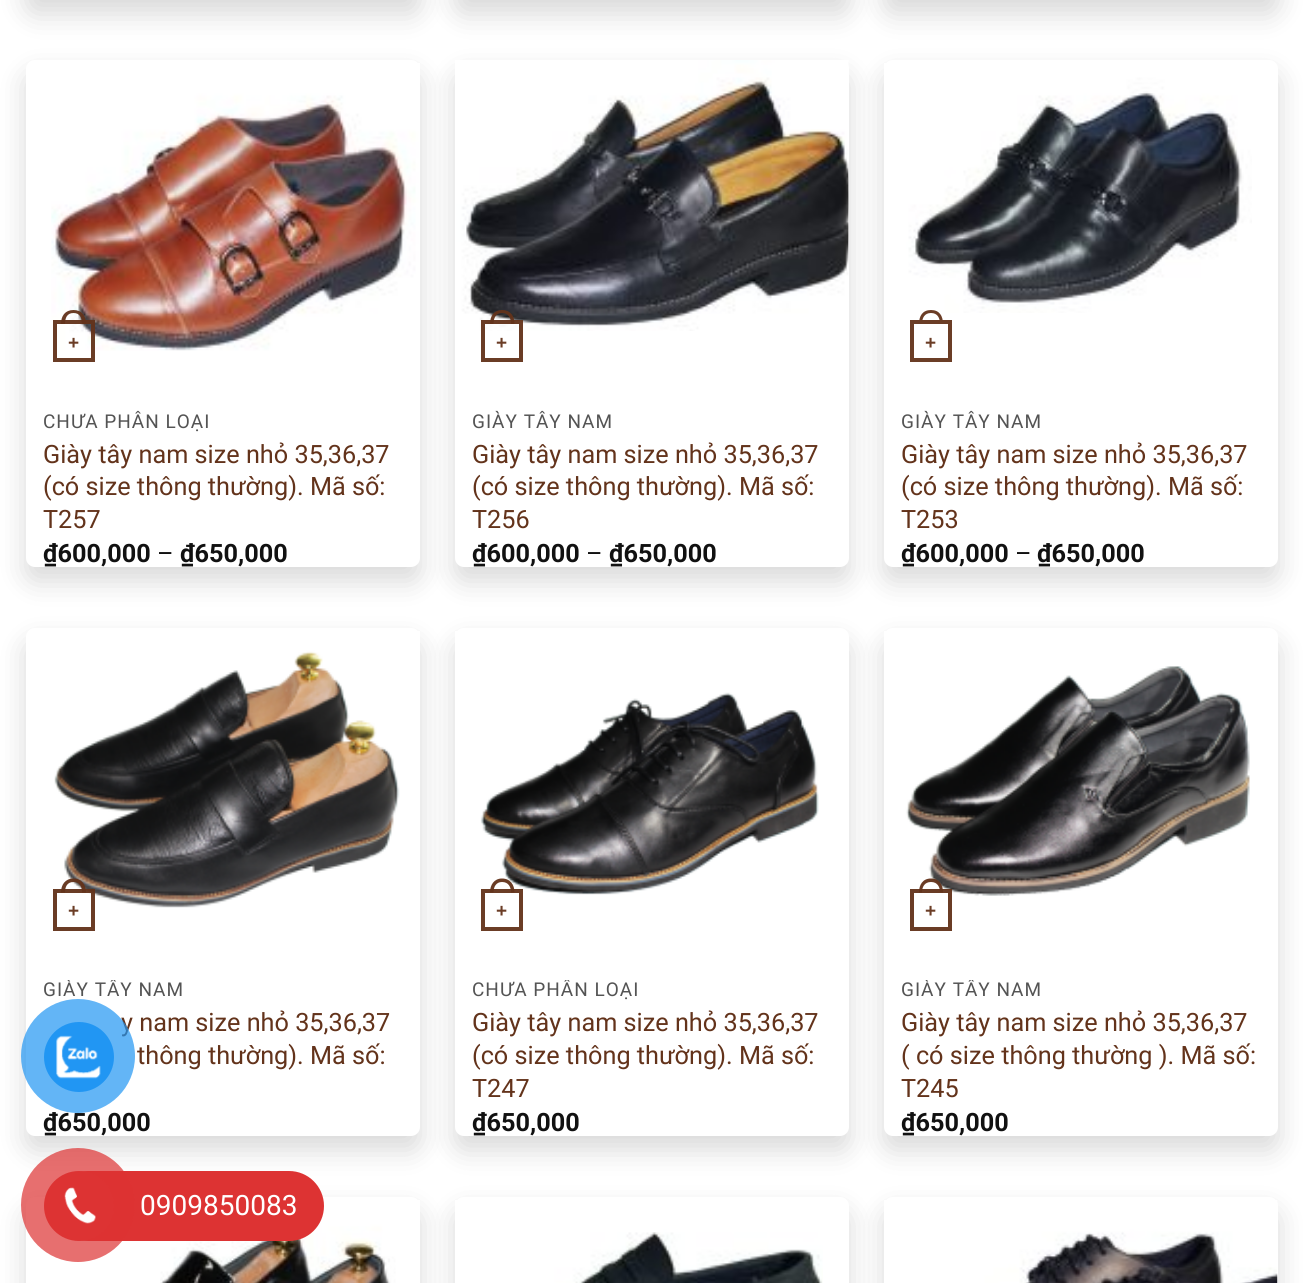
#include <cairo.h>
#include <math.h>
#include <stddef.h>


static void rgb(cairo_t *cr, int r, int g, int b)
{
	cairo_set_source_rgb(cr, r / 255.0, g / 255.0, b / 255.0);
}

static void face(cairo_t *cr, const char *family, double size, int italic, int bold)
{
	cairo_select_font_face(cr, family, italic ? CAIRO_FONT_SLANT_ITALIC : CAIRO_FONT_SLANT_NORMAL,
		bold ? CAIRO_FONT_WEIGHT_BOLD : CAIRO_FONT_WEIGHT_NORMAL);
	cairo_set_font_size(cr, size);
}

static void label(cairo_t *cr, double x, double y, const char *s)
{
	cairo_move_to(cr, x, y);
	cairo_show_text(cr, s);
}

static void tracked(cairo_t *cr, double x, double y, const char *s, double letter, double word)
{
	cairo_move_to(cr, x, y);
	while (*s) {
		char ch[5] = {0};
		int n = 0;
		do ch[n++] = *s++; while ((*s & 0xC0) == 0x80);
		cairo_show_text(cr, ch);
		cairo_rel_move_to(cr, letter + word * (*ch == ' '), 0);
	}
}

static void rrect(cairo_t *cr, double x, double y, double w, double h, double r)
{
	cairo_new_sub_path(cr);
	cairo_arc(cr, x + w - r, y + h - r, r, 0, M_PI / 2);
	cairo_arc(cr, x + r, y + h - r, r, M_PI / 2, M_PI);
	cairo_arc(cr, x + r, y + r, r, M_PI, 1.5 * M_PI);
	cairo_arc(cr, x + w - r, y + r, r, 1.5 * M_PI, 2 * M_PI);
	cairo_close_path(cr);
}

static void soft_shadow(cairo_t *cr, double x, double y, double w, double h, double r, double blur, double alpha)
{
	cairo_push_group_with_content(cr, CAIRO_CONTENT_ALPHA);
	cairo_set_operator(cr, CAIRO_OPERATOR_SOURCE);
	for (int i = 15; i >= -15 && fmin(w, h) + blur * i / 3 > 0; i -= 2) {
		double e = blur * i / 6;
		cairo_set_source_rgba(cr, 0, 0, 0, alpha * erfc((i - 1) / 8.5) / 2);
		rrect(cr, x - e, y - e, w + 2 * e, h + 2 * e, fmax(0, fmin(r + e + blur * .6, fmin(w, h) / 2 + e)));
		cairo_fill(cr);
	}
	cairo_pattern_t *soft = cairo_pop_group(cr);
	cairo_mask(cr, soft);
	cairo_pattern_destroy(soft);
}

static void image(cairo_t *cr, const char *path, double x, double y, double w, double h)
{
	cairo_surface_t *image = cairo_image_surface_create_from_png(path);
	cairo_save(cr);
	cairo_set_source_surface(cr, image, x, y);
	cairo_rectangle(cr, x, y, w, h);
	cairo_fill(cr);
	cairo_restore(cr);
	cairo_surface_destroy(image);
}

static void draw(cairo_t *cr) {
	rgb(cr, 255, 255, 255);
	cairo_paint(cr);
	rgb(cr, 0, 0, 0);
	soft_shadow(cr, 26, -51, 394, 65, 9, 14, 0.15);
	soft_shadow(cr, 455, -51, 394, 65, 9, 14, 0.15);
	soft_shadow(cr, 884, -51, 394, 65, 9, 14, 0.15);
	soft_shadow(cr, 26, 74, 394, 507, 9, 14, 0.15);
	rgb(cr, 255, 255, 255);
	rrect(cr, 26, 60, 394, 507, 9);
	cairo_fill(cr);
	image(cr, "image0.png", 51, 63, 369, 288);
	cairo_rectangle(cr, 55, 322, 38, 38);
	cairo_set_source_rgba(cr, 0.388, 0.2, 0.106, 0.95);
	cairo_set_line_width(cr, 4);
	cairo_stroke(cr);
	cairo_set_fill_rule(cr, CAIRO_FILL_RULE_EVEN_ODD);
	cairo_new_path(cr);
	cairo_move_to(cr, 73.5, 310);
	cairo_curve_to(cr, 82, 310, 86, 316, 86, 324);
	cairo_line_to(cr, 61, 324);
	cairo_curve_to(cr, 61, 316, 65, 310, 73.5, 310);
	cairo_close_path(cr);
	cairo_move_to(cr, 73.5, 313);
	cairo_curve_to(cr, 80, 313, 82, 318, 82, 324);
	cairo_line_to(cr, 65, 324);
	cairo_curve_to(cr, 65, 318, 67, 313, 73.5, 313);
	cairo_close_path(cr);
	cairo_fill(cr);
	face(cr, "Liberation Sans", 19, 0, 1);
	rgb(cr, 107, 61, 38);
	label(cr, 68, 349, "+");
	face(cr, "Roboto", 19, 0, 0);
	rgb(cr, 84, 84, 84);
	tracked(cr, 43, 428, "CHƯA PHÂN LOẠI", 1, 0);
	face(cr, "Roboto", 25.25, 0, 0);
	rgb(cr, 99, 51, 27);
	label(cr, 43, 463, "Giày tây nam size nhỏ 35,36,37");
	label(cr, 43, 495, "(có size thông thường). Mã số:");
	label(cr, 43, 528, "T257");
	face(cr, "Roboto", 25.25, 0, 1);
	rgb(cr, 17, 17, 17);
	label(cr, 43, 562, "₫600,000");
	face(cr, "Roboto", 25.25, 0, 0);
	rgb(cr, 10, 10, 10);
	label(cr, 157, 562, "–");
	face(cr, "Roboto", 25.25, 0, 1);
	rgb(cr, 17, 17, 17);
	label(cr, 180, 562, "₫650,000");
	rgb(cr, 0, 0, 0);
	soft_shadow(cr, 455, 74, 394, 507, 9, 14, 0.15);
	rgb(cr, 255, 255, 255);
	rrect(cr, 455, 60, 394, 507, 9);
	cairo_fill(cr);
	image(cr, "image1.png", 455, 60, 394, 271);
	cairo_rectangle(cr, 483, 322, 38, 38);
	cairo_set_source_rgba(cr, 0.388, 0.2, 0.106, 0.95);
	cairo_stroke(cr);
	cairo_new_path(cr);
	cairo_move_to(cr, 502, 310);
	cairo_curve_to(cr, 510.5, 310, 514.5, 316, 514.5, 324);
	cairo_line_to(cr, 490, 324);
	cairo_curve_to(cr, 490, 316, 494, 310, 502, 310);
	cairo_close_path(cr);
	cairo_move_to(cr, 502, 313);
	cairo_curve_to(cr, 508.5, 313, 511, 318, 511, 324);
	cairo_line_to(cr, 493.5, 324);
	cairo_curve_to(cr, 493.5, 318, 496, 313, 502, 313);
	cairo_close_path(cr);
	cairo_fill(cr);
	face(cr, "Liberation Sans", 19, 0, 1);
	rgb(cr, 107, 61, 38);
	label(cr, 496, 349, "+");
	face(cr, "Roboto", 19, 0, 0);
	rgb(cr, 84, 84, 84);
	tracked(cr, 472, 428, "GIÀY TÂY NAM", 1, 0);
	face(cr, "Roboto", 25.25, 0, 0);
	rgb(cr, 99, 51, 27);
	label(cr, 472, 463, "Giày tây nam size nhỏ 35,36,37");
	label(cr, 472, 495, "(có size thông thường). Mã số:");
	label(cr, 472, 528, "T256");
	face(cr, "Roboto", 25.25, 0, 1);
	rgb(cr, 17, 17, 17);
	label(cr, 472, 562, "₫600,000");
	face(cr, "Roboto", 25.25, 0, 0);
	rgb(cr, 10, 10, 10);
	label(cr, 586, 562, "–");
	face(cr, "Roboto", 25.25, 0, 1);
	rgb(cr, 17, 17, 17);
	label(cr, 609, 562, "₫650,000");
	rgb(cr, 0, 0, 0);
	soft_shadow(cr, 884, 74, 394, 507, 9, 14, 0.15);
	rgb(cr, 255, 255, 255);
	rrect(cr, 884, 60, 394, 507, 9);
	cairo_fill(cr);
	image(cr, "image2.png", 884, 63, 368, 250);
	cairo_rectangle(cr, 912, 322, 38, 38);
	rgb(cr, 107, 61, 38);
	cairo_stroke(cr);
	cairo_new_path(cr);
	cairo_move_to(cr, 931, 310);
	cairo_curve_to(cr, 939.5, 310, 943, 316, 943, 324);
	cairo_line_to(cr, 919, 324);
	cairo_curve_to(cr, 919, 316, 922.5, 310, 931, 310);
	cairo_close_path(cr);
	cairo_move_to(cr, 931, 313);
	cairo_curve_to(cr, 937.5, 313, 940, 318, 940, 324);
	cairo_line_to(cr, 922, 324);
	cairo_curve_to(cr, 922, 318, 924.5, 313, 931, 313);
	cairo_close_path(cr);
	cairo_fill(cr);
	face(cr, "Liberation Sans", 19, 0, 1);
	label(cr, 925, 349, "+");
	face(cr, "Roboto", 19, 0, 0);
	rgb(cr, 84, 84, 84);
	tracked(cr, 901, 428, "GIÀY TÂY NAM", 1, 0);
	face(cr, "Roboto", 25.25, 0, 0);
	rgb(cr, 99, 51, 27);
	label(cr, 901, 463, "Giày tây nam size nhỏ 35,36,37");
	label(cr, 901, 495, "(có size thông thường). Mã số:");
	label(cr, 901, 528, "T253");
	face(cr, "Roboto", 25.25, 0, 1);
	rgb(cr, 17, 17, 17);
	label(cr, 901, 562, "₫600,000");
	face(cr, "Roboto", 25.25, 0, 0);
	rgb(cr, 10, 10, 10);
	label(cr, 1015, 562, "–");
	face(cr, "Roboto", 25.25, 0, 1);
	rgb(cr, 17, 17, 17);
	label(cr, 1037, 562, "₫650,000");
	rgb(cr, 0, 0, 0);
	soft_shadow(cr, 26, 642, 394, 508, 9, 14, 0.15);
	rgb(cr, 255, 255, 255);
	rrect(cr, 26, 628, 394, 508, 9);
	cairo_fill(cr);
	image(cr, "image3.png", 54, 631, 366, 277);
	cairo_rectangle(cr, 55, 891, 38, 38);
	cairo_set_source_rgba(cr, 0.388, 0.2, 0.106, 0.95);
	cairo_stroke(cr);
	cairo_new_path(cr);
	cairo_move_to(cr, 73.5, 878.5);
	cairo_curve_to(cr, 82, 878.5, 86, 885, 86, 892.5);
	cairo_line_to(cr, 61, 892.5);
	cairo_curve_to(cr, 61, 885, 65, 878.5, 73.5, 878.5);
	cairo_close_path(cr);
	cairo_move_to(cr, 73.5, 882);
	cairo_curve_to(cr, 80, 882, 82, 887, 82, 892.5);
	cairo_line_to(cr, 65, 892.5);
	cairo_curve_to(cr, 65, 887, 67, 882, 73.5, 882);
	cairo_close_path(cr);
	cairo_fill(cr);
	face(cr, "Liberation Sans", 19, 0, 1);
	rgb(cr, 107, 61, 38);
	label(cr, 68, 917, "+");
	cairo_save(cr);
	cairo_set_fill_rule(cr, CAIRO_FILL_RULE_WINDING);
	cairo_rectangle(cr, 44, 980, 359, 23);
	cairo_clip(cr);
	face(cr, "Roboto", 19, 0, 0);
	rgb(cr, 84, 84, 84);
	tracked(cr, 43, 996, "GIÀY TÂY NAM", 1, 0);
	cairo_restore(cr);
	face(cr, "Roboto", 25.25, 0, 0);
	rgb(cr, 99, 51, 27);
	label(cr, 121, 1031, "y nam size nhỏ 35,36,37");
	label(cr, 137, 1064, "thông thường). Mã số:");
	face(cr, "Roboto", 25.25, 0, 1);
	rgb(cr, 17, 17, 17);
	label(cr, 43, 1131, "₫650,000");
	rgb(cr, 0, 0, 0);
	soft_shadow(cr, 455, 642, 394, 508, 9, 14, 0.15);
	rgb(cr, 255, 255, 255);
	rrect(cr, 455, 628, 394, 508, 9);
	cairo_fill(cr);
	image(cr, "image4.png", 455, 631, 364, 264);
	cairo_rectangle(cr, 483, 891, 38, 38);
	rgb(cr, 107, 61, 38);
	cairo_stroke(cr);
	cairo_set_source_rgba(cr, 0.388, 0.2, 0.106, 0.95);
	cairo_new_path(cr);
	cairo_move_to(cr, 502, 878.5);
	cairo_curve_to(cr, 510.5, 878.5, 514.5, 885, 514.5, 892.5);
	cairo_line_to(cr, 490, 892.5);
	cairo_curve_to(cr, 490, 885, 494, 878.5, 502, 878.5);
	cairo_close_path(cr);
	cairo_move_to(cr, 502, 882);
	cairo_curve_to(cr, 508.5, 882, 511, 887, 511, 892.5);
	cairo_line_to(cr, 493.5, 892.5);
	cairo_curve_to(cr, 493.5, 887, 496, 882, 502, 882);
	cairo_close_path(cr);
	cairo_fill(cr);
	face(cr, "Liberation Sans", 19, 0, 1);
	rgb(cr, 107, 61, 38);
	label(cr, 496, 917, "+");
	cairo_save(cr);
	cairo_set_fill_rule(cr, CAIRO_FILL_RULE_WINDING);
	cairo_rectangle(cr, 473, 980, 358, 23);
	cairo_clip(cr);
	face(cr, "Roboto", 19, 0, 0);
	rgb(cr, 84, 84, 84);
	tracked(cr, 472, 996, "CHƯA PHÂN LOẠI", 1, 0);
	cairo_restore(cr);
	face(cr, "Roboto", 25.25, 0, 0);
	rgb(cr, 99, 51, 27);
	label(cr, 472, 1031, "Giày tây nam size nhỏ 35,36,37");
	label(cr, 472, 1064, "(có size thông thường). Mã số:");
	label(cr, 472, 1097, "T247");
	face(cr, "Roboto", 25.25, 0, 1);
	rgb(cr, 17, 17, 17);
	label(cr, 472, 1131, "₫650,000");
	rgb(cr, 0, 0, 0);
	soft_shadow(cr, 884, 642, 394, 508, 9, 14, 0.15);
	rgb(cr, 255, 255, 255);
	rrect(cr, 884, 628, 394, 508, 9);
	cairo_fill(cr);
	image(cr, "image5.png", 884, 631, 366, 265);
	cairo_rectangle(cr, 912, 891, 38, 38);
	cairo_set_source_rgba(cr, 0.388, 0.2, 0.106, 0.95);
	cairo_stroke(cr);
	cairo_new_path(cr);
	cairo_move_to(cr, 931, 878.5);
	cairo_curve_to(cr, 939.5, 878.5, 943, 885, 943, 892.5);
	cairo_line_to(cr, 919, 892.5);
	cairo_curve_to(cr, 919, 885, 922.5, 878.5, 931, 878.5);
	cairo_close_path(cr);
	cairo_move_to(cr, 931, 882);
	cairo_curve_to(cr, 937.5, 882, 940, 887, 940, 892.5);
	cairo_line_to(cr, 922, 892.5);
	cairo_curve_to(cr, 922, 887, 924.5, 882, 931, 882);
	cairo_close_path(cr);
	cairo_fill(cr);
	face(cr, "Liberation Sans", 19, 0, 1);
	rgb(cr, 107, 61, 38);
	label(cr, 925, 917, "+");
	cairo_save(cr);
	cairo_set_fill_rule(cr, CAIRO_FILL_RULE_WINDING);
	cairo_rectangle(cr, 901, 980, 359, 23);
	cairo_clip(cr);
	face(cr, "Roboto", 19, 0, 0);
	rgb(cr, 84, 84, 84);
	tracked(cr, 901, 996, "GIÀY TÂY NAM", 1, 0);
	cairo_restore(cr);
	face(cr, "Roboto", 25.25, 0, 0);
	rgb(cr, 99, 51, 27);
	label(cr, 901, 1031, "Giày tây nam size nhỏ 35,36,37");
	label(cr, 901, 1064, "( có size thông thường ). Mã số:");
	label(cr, 901, 1097, "T245");
	face(cr, "Roboto", 25.25, 0, 1);
	rgb(cr, 17, 17, 17);
	label(cr, 901, 1131, "₫650,000");
	rgb(cr, 0, 0, 0);
	soft_shadow(cr, 26, 1211, 394, 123, 9, 14, 0.15);
	rgb(cr, 255, 255, 255);
	rrect(cr, 26, 1197, 394, 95, 9);
	cairo_fill(cr);
	image(cr, "image6.png", 160, 1200, 260, 83);
	rgb(cr, 0, 0, 0);
	soft_shadow(cr, 455, 1211, 394, 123, 9, 14, 0.15);
	rgb(cr, 255, 255, 255);
	rrect(cr, 455, 1197, 394, 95, 9);
	cairo_fill(cr);
	image(cr, "image7.png", 455, 1200, 368, 83);
	rgb(cr, 0, 0, 0);
	soft_shadow(cr, 884, 1211, 394, 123, 9, 14, 0.15);
	rgb(cr, 255, 255, 255);
	rrect(cr, 884, 1197, 394, 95, 9);
	cairo_fill(cr);
	image(cr, "image8.png", 884, 1200, 394, 83);
	cairo_set_source_rgba(cr, 0.129, 0.588, 0.953, 0.7);
	cairo_arc(cr, 78, 1056, 57, 0, 2 * M_PI);
	cairo_fill(cr);
	rgb(cr, 33, 150, 243);
	cairo_arc(cr, 79, 1057, 35, 0, 2 * M_PI);
	cairo_fill(cr);
	image(cr, "image9.png", 56, 1035, 45, 44);
	rgb(cr, 221, 51, 51);
	rrect(cr, 53, 1171, 271, 70, 35);
	cairo_fill(cr);
	cairo_set_source_rgba(cr, 0.867, 0.2, 0.2, 0.7);
	cairo_arc(cr, 78, 1205, 57, 0, 2 * M_PI);
	cairo_fill(cr);
	rgb(cr, 221, 51, 51);
	cairo_arc(cr, 79, 1206, 35, 0, 2 * M_PI);
	cairo_fill(cr);
	image(cr, "image10.png", 64, 1187, 32, 37);
	face(cr, "Roboto", 28, 0, 0);
	rgb(cr, 255, 255, 255);
	label(cr, 140, 1215, "0909850083");
}

int main(void) {
	cairo_surface_t *surface = cairo_image_surface_create(CAIRO_FORMAT_RGB24, 1303, 1283);
	cairo_t *cr = cairo_create(surface);
	cairo_font_options_t *options = cairo_font_options_create();
	cairo_font_options_set_hint_metrics(options, CAIRO_HINT_METRICS_OFF);
	cairo_font_options_set_hint_style(options, CAIRO_HINT_STYLE_NONE);
	cairo_set_font_options(cr, options);
	cairo_set_miter_limit(cr, 4);
	draw(cr);
	cairo_surface_write_to_png(surface, "render.png");
	cairo_font_options_destroy(options);
	cairo_destroy(cr);
	cairo_surface_destroy(surface);
	return 0;
}
